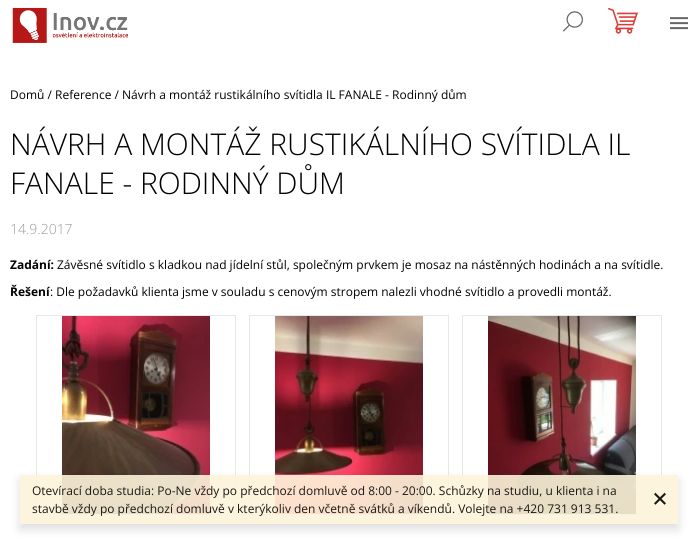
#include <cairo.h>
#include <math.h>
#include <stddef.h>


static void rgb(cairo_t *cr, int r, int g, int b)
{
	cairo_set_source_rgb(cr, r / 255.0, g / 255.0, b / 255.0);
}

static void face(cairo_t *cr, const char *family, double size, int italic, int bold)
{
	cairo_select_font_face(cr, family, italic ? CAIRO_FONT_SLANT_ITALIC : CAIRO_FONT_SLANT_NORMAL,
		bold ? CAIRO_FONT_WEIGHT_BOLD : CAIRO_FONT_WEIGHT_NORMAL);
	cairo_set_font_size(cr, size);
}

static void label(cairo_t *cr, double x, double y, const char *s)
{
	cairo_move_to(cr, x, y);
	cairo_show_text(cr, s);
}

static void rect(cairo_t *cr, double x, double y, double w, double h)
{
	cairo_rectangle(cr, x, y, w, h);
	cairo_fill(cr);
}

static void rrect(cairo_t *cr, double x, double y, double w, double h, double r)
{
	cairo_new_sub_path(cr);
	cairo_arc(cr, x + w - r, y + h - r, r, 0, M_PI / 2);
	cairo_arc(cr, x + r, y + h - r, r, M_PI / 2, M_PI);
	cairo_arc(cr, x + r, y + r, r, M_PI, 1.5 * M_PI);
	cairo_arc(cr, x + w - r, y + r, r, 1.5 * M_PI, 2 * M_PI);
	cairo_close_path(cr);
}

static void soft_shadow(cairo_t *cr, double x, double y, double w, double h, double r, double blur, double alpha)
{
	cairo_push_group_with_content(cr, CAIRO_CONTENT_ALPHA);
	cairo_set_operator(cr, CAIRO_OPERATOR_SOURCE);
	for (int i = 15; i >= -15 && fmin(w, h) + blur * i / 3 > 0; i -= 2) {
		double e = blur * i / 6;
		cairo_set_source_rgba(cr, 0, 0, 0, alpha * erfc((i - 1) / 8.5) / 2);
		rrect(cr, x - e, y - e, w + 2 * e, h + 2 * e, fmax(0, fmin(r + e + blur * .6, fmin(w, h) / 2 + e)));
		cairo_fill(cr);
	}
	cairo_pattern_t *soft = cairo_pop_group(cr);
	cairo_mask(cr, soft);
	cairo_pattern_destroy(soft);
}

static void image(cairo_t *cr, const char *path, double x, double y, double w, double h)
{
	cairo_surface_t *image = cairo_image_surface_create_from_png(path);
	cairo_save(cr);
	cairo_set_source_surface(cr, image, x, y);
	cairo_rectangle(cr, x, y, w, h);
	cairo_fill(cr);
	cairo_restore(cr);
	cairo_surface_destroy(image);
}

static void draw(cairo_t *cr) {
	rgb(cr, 255, 255, 255);
	cairo_paint(cr);
	image(cr, "image0.png", 12, 7, 116, 36);
	image(cr, "image1.png", 563, 11, 20, 21);
	image(cr, "image2.png", 608, 8, 30, 26);
	image(cr, "image3.png", 670, 17, 18, 13);
	face(cr, "Open Sans", 12, 0, 0);
	rgb(cr, 0, 0, 0);
	label(cr, 10, 99, "Domů / Reference / Návrh a montáž rustikálního svítidla IL FANALE - Rodinný dům");
	face(cr, "Open Sans Light", 30, 0, 0);
	label(cr, 10, 155, "NÁVRH A MONTÁŽ RUSTIKÁLNÍHO SVÍTIDLA IL");
	label(cr, 10, 194, "FANALE - RODINNÝ DŮM");
	face(cr, "Open Sans Light", 14, 0, 0);
	rgb(cr, 153, 153, 153);
	label(cr, 10, 234, "14.9.2017");
	face(cr, "Open Sans", 12, 0, 1);
	rgb(cr, 0, 0, 0);
	label(cr, 10, 269, "Zadání:");
	face(cr, "Open Sans", 12, 0, 0);
	label(cr, 57, 269, "Závěsné svítidlo s kladkou nad jídelní stůl, společným prvkem je mosaz na nástěnných hodinách a na svítidle.");
	face(cr, "Open Sans", 12, 0, 1);
	label(cr, 10, 296, "Řešení");
	face(cr, "Open Sans", 12, 0, 0);
	label(cr, 50, 296, ": Dle požadavků klienta jsme v souladu s cenovým stropem nalezli vhodné svítidlo a provedli montáž.");
	cairo_rectangle(cr, 36.5, 315.5, 199, 199);
	rgb(cr, 231, 231, 231);
	cairo_set_line_width(cr, 1);
	cairo_stroke(cr);
	image(cr, "image4.png", 62, 316, 148, 198);
	cairo_rectangle(cr, 249.5, 315.5, 199, 199);
	cairo_stroke(cr);
	image(cr, "image5.png", 275, 316, 148, 198);
	cairo_rectangle(cr, 462.5, 315.5, 199, 199);
	cairo_stroke(cr);
	image(cr, "image6.png", 488, 316, 148, 198);
	cairo_save(cr);
	cairo_set_fill_rule(cr, CAIRO_FILL_RULE_EVEN_ODD);
	cairo_new_path(cr);
	cairo_move_to(cr, 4, 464);
	cairo_line_to(cr, 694, 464);
	cairo_line_to(cr, 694, 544);
	cairo_line_to(cr, 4, 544);
	cairo_close_path(cr);
	cairo_move_to(cr, 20, 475);
	cairo_line_to(cr, 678, 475);
	cairo_line_to(cr, 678, 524);
	cairo_line_to(cr, 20, 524);
	cairo_close_path(cr);
	cairo_clip(cr);
	rgb(cr, 0, 0, 0);
	soft_shadow(cr, 20, 480, 658, 49, 0, 5, 0.14);
	cairo_restore(cr);
	cairo_set_source_rgba(cr, 0.992, 0.953, 0.855, 0.9);
	rect(cr, 20, 475, 658, 49);
	rgb(cr, 24, 23, 21);
	label(cr, 32, 495, "Otevírací doba studia: Po-Ne vždy po předchozí domluvě od 8:00 - 20:00. Schůzky na studiu, u klienta i na");
	label(cr, 32, 513, "stavbě vždy po předchozí domluvě v kterýkoliv den včetně svátků a víkendů. Volejte na +420 731 913 531.");
	image(cr, "image7.png", 654, 492, 12, 13);
}

int main(void) {
	cairo_surface_t *surface = cairo_image_surface_create(CAIRO_FORMAT_RGB24, 698, 544);
	cairo_t *cr = cairo_create(surface);
	cairo_font_options_t *options = cairo_font_options_create();
	cairo_font_options_set_hint_metrics(options, CAIRO_HINT_METRICS_OFF);
	cairo_font_options_set_hint_style(options, CAIRO_HINT_STYLE_NONE);
	cairo_set_font_options(cr, options);
	cairo_set_miter_limit(cr, 4);
	draw(cr);
	cairo_surface_write_to_png(surface, "render.png");
	cairo_font_options_destroy(options);
	cairo_destroy(cr);
	cairo_surface_destroy(surface);
	return 0;
}
